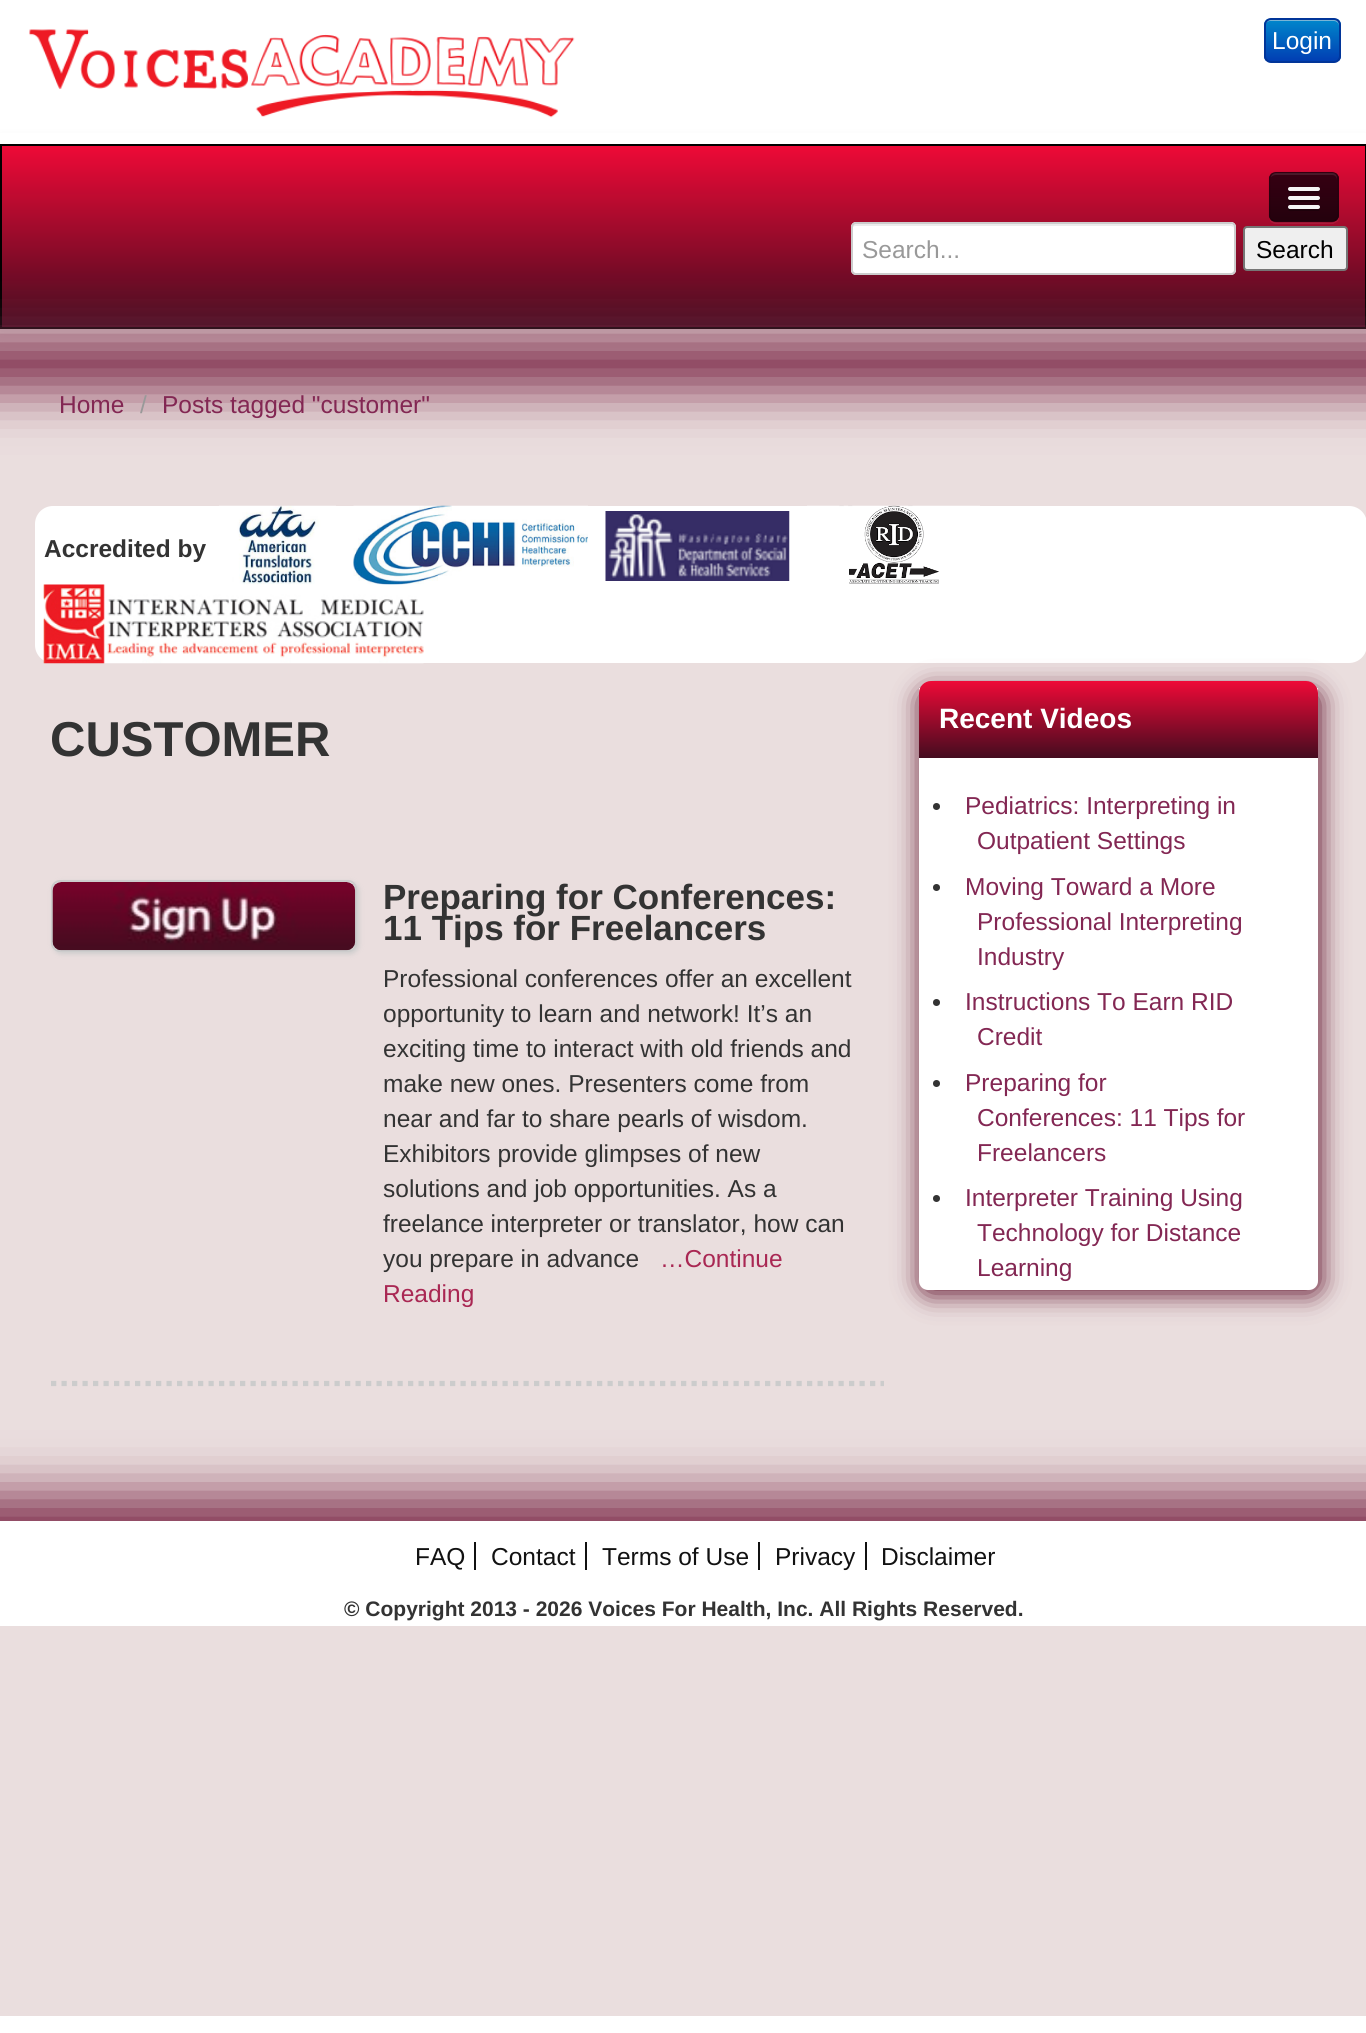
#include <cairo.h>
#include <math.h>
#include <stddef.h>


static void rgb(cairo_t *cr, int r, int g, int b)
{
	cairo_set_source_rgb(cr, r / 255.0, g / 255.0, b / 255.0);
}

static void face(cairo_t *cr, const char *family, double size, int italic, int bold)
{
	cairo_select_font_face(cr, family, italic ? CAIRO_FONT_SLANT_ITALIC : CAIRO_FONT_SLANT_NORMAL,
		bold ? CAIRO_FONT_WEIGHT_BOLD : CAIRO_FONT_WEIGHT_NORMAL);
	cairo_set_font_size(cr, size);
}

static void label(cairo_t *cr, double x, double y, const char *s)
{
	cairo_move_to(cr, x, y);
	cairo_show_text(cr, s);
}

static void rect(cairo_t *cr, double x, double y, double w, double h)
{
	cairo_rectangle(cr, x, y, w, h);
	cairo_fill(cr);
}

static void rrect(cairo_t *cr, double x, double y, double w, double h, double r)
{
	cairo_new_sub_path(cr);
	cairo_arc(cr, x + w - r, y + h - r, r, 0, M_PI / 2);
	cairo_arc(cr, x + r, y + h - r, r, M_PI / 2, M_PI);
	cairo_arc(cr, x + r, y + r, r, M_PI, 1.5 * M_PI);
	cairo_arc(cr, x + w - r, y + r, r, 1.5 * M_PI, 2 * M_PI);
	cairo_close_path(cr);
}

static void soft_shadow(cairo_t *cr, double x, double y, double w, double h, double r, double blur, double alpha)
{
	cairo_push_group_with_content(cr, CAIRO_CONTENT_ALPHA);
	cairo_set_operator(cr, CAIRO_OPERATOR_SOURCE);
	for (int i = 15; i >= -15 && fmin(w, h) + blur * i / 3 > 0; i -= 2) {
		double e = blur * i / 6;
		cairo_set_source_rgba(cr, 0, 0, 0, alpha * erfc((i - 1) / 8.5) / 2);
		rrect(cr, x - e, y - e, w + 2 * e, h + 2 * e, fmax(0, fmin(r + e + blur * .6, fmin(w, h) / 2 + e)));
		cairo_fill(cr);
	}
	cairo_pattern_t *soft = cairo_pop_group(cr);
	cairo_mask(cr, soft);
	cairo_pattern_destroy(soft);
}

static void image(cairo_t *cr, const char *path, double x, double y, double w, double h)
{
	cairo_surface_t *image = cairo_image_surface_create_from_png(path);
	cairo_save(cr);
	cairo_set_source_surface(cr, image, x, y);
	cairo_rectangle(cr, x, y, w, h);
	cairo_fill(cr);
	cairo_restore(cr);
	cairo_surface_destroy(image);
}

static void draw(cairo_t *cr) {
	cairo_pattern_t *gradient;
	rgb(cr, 255, 255, 255);
	cairo_paint(cr);
	rgb(cr, 234, 222, 222);
	rect(cr, 0, 329, 1366, 1687);
	rgb(cr, 0, 0, 0);
	soft_shadow(cr, 0, 145, 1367, 186, 0, 9, 0.1);
	rgb(cr, 255, 255, 255);
	rect(cr, 0, 133, 1366, 11);
	image(cr, "image0.png", 29, 29, 546, 89);
	cairo_save(cr);
	rrect(cr, 1264, 18, 77, 45, 7);
	cairo_clip(cr);
	gradient = cairo_pattern_create_linear(1302, 19, 1302, 61);
	cairo_pattern_add_color_stop_rgba(gradient, 0, 0, 0.533, 0.8, 1);
	cairo_pattern_add_color_stop_rgba(gradient, 1, 0.004, 0.243, 0.702, 1);
	cairo_set_source(cr, gradient);
	cairo_pattern_destroy(gradient);
	rect(cr, 1264, 19, 77, 42);
	cairo_restore(cr);
	rgb(cr, 121, 180, 214);
	cairo_new_path(cr);
	cairo_move_to(cr, 1270, 21);
	cairo_line_to(cr, 1334, 21);
	cairo_curve_to(cr, 1336, 21, 1339, 23, 1339, 26);
	cairo_curve_to(cr, 1339, 16, 1331, 19, 1323, 19);
	cairo_line_to(cr, 1281, 19);
	cairo_curve_to(cr, 1273, 19, 1265, 16, 1265, 26);
	cairo_curve_to(cr, 1265, 23, 1268, 21, 1270, 21);
	cairo_close_path(cr);
	cairo_fill(cr);
	rrect(cr, 1265, 19, 75, 43, 6);
	rgb(cr, 1, 53, 153);
	cairo_stroke(cr);
	face(cr, "Liberation Sans", 24.5, 0, 0);
	rgb(cr, 255, 255, 255);
	label(cr, 1272, 49, "Login");
	gradient = cairo_pattern_create_linear(683, 145, 683, 327);
	cairo_pattern_add_color_stop_rgba(gradient, 0, 0.937, 0.039, 0.216, 1);
	cairo_pattern_add_color_stop_rgba(gradient, 1, 0.267, 0.047, 0.122, 1);
	cairo_set_source(cr, gradient);
	cairo_pattern_destroy(gradient);
	rect(cr, 2, 146, 1363, 181);
	cairo_rectangle(cr, 1, 145, 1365, 183);
	rgb(cr, 0, 0, 0);
	cairo_stroke(cr);
	cairo_set_source_rgba(cr, 1, 1, 1, 0.07);
	cairo_new_path(cr);
	cairo_move_to(cr, 1269, 217);
	cairo_line_to(cr, 1270, 220);
	cairo_curve_to(cr, 1270, 222, 1272, 223, 1275, 224);
	cairo_line_to(cr, 1333, 224);
	cairo_curve_to(cr, 1335, 223, 1337, 222, 1338, 221);
	cairo_line_to(cr, 1339, 218);
	cairo_line_to(cr, 1339, 178);
	cairo_line_to(cr, 1339, 217);
	cairo_line_to(cr, 1337, 220);
	cairo_curve_to(cr, 1333, 224, 1326, 222, 1322, 222);
	cairo_line_to(cr, 1285, 222);
	cairo_curve_to(cr, 1280, 222, 1271, 224, 1269, 217);
	cairo_close_path(cr);
	cairo_fill(cr);
	rgb(cr, 54, 0, 18);
	rrect(cr, 1269, 172, 70, 50, 7);
	cairo_fill(cr);
	cairo_save(cr);
	rrect(cr, 1269, 172, 70, 50, 7);
	cairo_clip(cr);
	gradient = cairo_pattern_create_linear(1304, 173, 1304, 221);
	cairo_pattern_add_color_stop_rgba(gradient, 0, 0.212, 0, 0.071, 1);
	cairo_pattern_add_color_stop_rgba(gradient, 1, 0.141, 0.004, 0.051, 1);
	cairo_set_source(cr, gradient);
	cairo_pattern_destroy(gradient);
	rect(cr, 1269, 173, 70, 48);
	cairo_restore(cr);
	rgb(cr, 74, 26, 42);
	cairo_new_path(cr);
	cairo_move_to(cr, 1276, 175);
	cairo_line_to(cr, 1332, 175);
	cairo_curve_to(cr, 1335, 175, 1337, 177, 1337, 180);
	cairo_line_to(cr, 1337, 178);
	cairo_curve_to(cr, 1337, 175, 1335, 173, 1332, 173);
	cairo_line_to(cr, 1276, 173);
	cairo_curve_to(cr, 1274, 173, 1271, 175, 1271, 177);
	cairo_curve_to(cr, 1272, 176, 1274, 175, 1276, 175);
	cairo_close_path(cr);
	cairo_fill(cr);
	cairo_new_path(cr);
	cairo_move_to(cr, 1336, 219.5);
	cairo_curve_to(cr, 1335, 220.5, 1333.5, 221.5, 1332, 221.5);
	cairo_line_to(cr, 1276, 221.5);
	cairo_curve_to(cr, 1274, 221.5, 1272.5, 220.5, 1271.5, 219.5);
	cairo_set_source_rgba(cr, 0, 0, 0, 0.25);
	cairo_set_line_width(cr, 1.8);
	cairo_stroke(cr);
	cairo_new_path(cr);
	cairo_move_to(cr, 1271.5, 219.5);
	cairo_curve_to(cr, 1270.5, 218.5, 1269.5, 217, 1269.5, 215);
	cairo_line_to(cr, 1269.5, 178.5);
	cairo_curve_to(cr, 1269.5, 177, 1270.5, 175.5, 1271.5, 174);
	cairo_curve_to(cr, 1272.5, 173, 1274, 172.5, 1276, 172.5);
	cairo_line_to(cr, 1332, 172.5);
	cairo_curve_to(cr, 1333.5, 172.5, 1335, 173, 1336, 174);
	cairo_curve_to(cr, 1337, 175.5, 1338, 177, 1338, 178.5);
	cairo_line_to(cr, 1338, 215);
	cairo_curve_to(cr, 1338, 217, 1337, 218.5, 1336, 219.5);
	cairo_set_source_rgba(cr, 0, 0, 0, 0.1);
	cairo_stroke(cr);
	rgb(cr, 35, 0, 12);
	cairo_new_path(cr);
	cairo_move_to(cr, 1288.5, 190);
	cairo_curve_to(cr, 1286, 194, 1294, 193, 1294.5, 193);
	cairo_line_to(cr, 1304, 193);
	cairo_curve_to(cr, 1306.5, 193, 1318, 193.5, 1319.5, 192.5);
	cairo_curve_to(cr, 1320, 191.5, 1320, 190.5, 1319.5, 189.5);
	cairo_line_to(cr, 1318.5, 190.5);
	cairo_line_to(cr, 1289.5, 190.5);
	cairo_close_path(cr);
	cairo_fill(cr);
	rgb(cr, 245, 245, 245);
	rrect(cr, 1288, 187, 32, 4, 2);
	cairo_fill(cr);
	rgb(cr, 33, 1, 11);
	cairo_new_path(cr);
	cairo_move_to(cr, 1288.5, 199);
	cairo_line_to(cr, 1288, 200.5);
	cairo_curve_to(cr, 1288.5, 203, 1293.5, 202, 1294.5, 202);
	cairo_line_to(cr, 1313.5, 202);
	cairo_curve_to(cr, 1315, 202, 1320, 203, 1320, 200);
	cairo_line_to(cr, 1319.5, 198.5);
	cairo_curve_to(cr, 1319, 199, 1318.5, 199.5, 1318, 199.5);
	cairo_line_to(cr, 1289.5, 199.5);
	cairo_close_path(cr);
	cairo_fill(cr);
	rgb(cr, 245, 245, 245);
	rrect(cr, 1288, 196, 32, 4, 2);
	cairo_fill(cr);
	rgb(cr, 30, 1, 11);
	cairo_new_path(cr);
	cairo_move_to(cr, 1288.5, 207.5);
	cairo_curve_to(cr, 1288, 208, 1288, 209, 1288, 209.5);
	cairo_curve_to(cr, 1288.5, 212, 1293.5, 211, 1294.5, 211);
	cairo_line_to(cr, 1318, 211);
	cairo_curve_to(cr, 1320, 211, 1320.5, 208.5, 1319, 207.5);
	cairo_line_to(cr, 1318, 208);
	cairo_line_to(cr, 1289.5, 208);
	cairo_close_path(cr);
	cairo_fill(cr);
	rgb(cr, 245, 245, 245);
	rrect(cr, 1288, 205, 32, 4, 2);
	cairo_fill(cr);
	rgb(cr, 129, 50, 79);
	soft_shadow(cr, -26, 338, 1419, 52, 0, 26, 1);
	rgb(cr, 255, 255, 255);
	rrect(cr, 851, 222, 385, 53, 5);
	cairo_fill(cr);
	rgb(cr, 236, 236, 236);
	cairo_new_path(cr);
	cairo_move_to(cr, 856, 226);
	cairo_line_to(cr, 1230, 226);
	cairo_curve_to(cr, 1232, 226, 1234, 227, 1234, 229);
	cairo_curve_to(cr, 1234, 226, 1233, 224, 1230, 224);
	cairo_line_to(cr, 856, 224);
	cairo_curve_to(cr, 853, 224, 852, 226, 852, 229);
	cairo_curve_to(cr, 852, 227, 854, 226, 856, 226);
	cairo_close_path(cr);
	cairo_fill(cr);
	rrect(cr, 852, 223, 383, 51, 4);
	rgb(cr, 204, 204, 204);
	cairo_set_line_width(cr, 2);
	cairo_stroke(cr);
	rgb(cr, 153, 153, 153);
	label(cr, 862, 258, "Search...");
	rgb(cr, 239, 239, 239);
	rrect(cr, 1244, 227, 103, 43, 3);
	cairo_fill_preserve(cr);
	rgb(cr, 118, 118, 118);
	cairo_stroke(cr);
	rgb(cr, 0, 0, 0);
	label(cr, 1256, 258, "Search");
	rgb(cr, 131, 39, 83);
	label(cr, 59, 413, "Home");
	rgb(cr, 153, 153, 153);
	label(cr, 140, 413, "/");
	rgb(cr, 131, 39, 83);
	label(cr, 162, 413, "Posts tagged \"customer\"");
	rgb(cr, 255, 255, 255);
	rrect(cr, 35, 506, 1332, 157, 18);
	cairo_fill(cr);
	face(cr, "Liberation Sans", 24.5, 0, 1);
	rgb(cr, 51, 51, 51);
	label(cr, 44, 557, "Accredited by");
	image(cr, "image1.png", 219, 505, 117, 80);
	image(cr, "image2.png", 353, 505, 235, 80);
	image(cr, "image3.png", 605, 511, 185, 70);
	image(cr, "image4.png", 807, 505, 173, 79);
	image(cr, "image5.png", 43, 584, 381, 80);
	face(cr, "Liberation Sans", 49, 0, 1);
	label(cr, 50, 756, "CUSTOMER");
	rgb(cr, 204, 204, 204);
	soft_shadow(cr, 53, 882, 306, 72, 9, 2.5, 1);
	rgb(cr, 238, 238, 238);
	rrect(cr, 52, 881, 304, 70, 8);
	cairo_fill_preserve(cr);
	rgb(cr, 204, 204, 204);
	cairo_stroke(cr);
	image(cr, "image6.png", 52, 882, 304, 69);
	face(cr, "Liberation Sans", 35, 0, 1);
	rgb(cr, 51, 51, 51);
	label(cr, 383, 909, "Preparing for Conferences:");
	label(cr, 383, 940, "11 Tips for Freelancers");
	face(cr, "Liberation Sans", 24.5, 0, 0);
	label(cr, 383, 987, "Professional conferences offer an excellent");
	label(cr, 383, 1022, "opportunity to learn and network! It’s an");
	label(cr, 383, 1057, "exciting time to interact with old friends and");
	label(cr, 383, 1092, "make new ones. Presenters come from");
	label(cr, 383, 1127, "near and far to share pearls of wisdom.");
	label(cr, 383, 1162, "Exhibitors provide glimpses of new");
	label(cr, 383, 1197, "solutions and job opportunities. As a");
	label(cr, 383, 1232, "freelance interpreter or translator, how can");
	label(cr, 383, 1267, "you prepare in advance");
	rgb(cr, 169, 39, 83);
	label(cr, 660, 1267, "…Continue");
	label(cr, 383, 1302, "Reading");
	cairo_new_path(cr);
	cairo_move_to(cr, 51, 1383.5);
	cairo_line_to(cr, 884, 1383.5);
	rgb(cr, 204, 204, 204);
	cairo_set_line_width(cr, 5.2);
	cairo_set_dash(cr, (double[]){5.25, 5.25}, 2, 0);
	cairo_stroke(cr);
	rgb(cr, 89, 8, 35);
	soft_shadow(cr, 921, 691, 399, 602, 9, 13, 1);
	rgb(cr, 255, 255, 255);
	cairo_new_path(cr);
	cairo_move_to(cr, 919, 688);
	cairo_line_to(cr, 1318, 688);
	cairo_line_to(cr, 1318, 1281);
	cairo_curve_to(cr, 1318, 1286, 1314, 1290, 1309, 1290);
	cairo_line_to(cr, 928, 1290);
	cairo_curve_to(cr, 923, 1290, 919, 1286, 919, 1281);
	cairo_close_path(cr);
	cairo_fill(cr);
	gradient = cairo_pattern_create_linear(1118, 681, 1118, 758);
	cairo_pattern_add_color_stop_rgba(gradient, 0, 0.937, 0.039, 0.216, 1);
	cairo_pattern_add_color_stop_rgba(gradient, 1, 0.267, 0.047, 0.122, 1);
	cairo_set_source(cr, gradient);
	cairo_pattern_destroy(gradient);
	cairo_new_path(cr);
	cairo_move_to(cr, 931, 681);
	cairo_line_to(cr, 1306, 681);
	cairo_curve_to(cr, 1312.5, 681, 1318, 686.5, 1318, 693);
	cairo_line_to(cr, 1318, 758);
	cairo_line_to(cr, 919, 758);
	cairo_line_to(cr, 919, 693);
	cairo_curve_to(cr, 919, 686.5, 924.5, 681, 931, 681);
	cairo_close_path(cr);
	cairo_fill(cr);
	face(cr, "Liberation Sans", 28, 0, 1);
	rgb(cr, 255, 255, 255);
	label(cr, 939, 728, "Recent Videos");
	rgb(cr, 51, 51, 51);
	cairo_new_path(cr);
	cairo_arc(cr, 936.5, 806.5, 3.5, 0, 2 * M_PI);
	cairo_fill(cr);
	face(cr, "Liberation Sans", 24.5, 0, 0);
	rgb(cr, 131, 39, 83);
	label(cr, 965, 814, "Pediatrics: Interpreting in");
	label(cr, 977, 849, "Outpatient Settings");
	rgb(cr, 51, 51, 51);
	cairo_new_path(cr);
	cairo_arc(cr, 936.5, 887.5, 3.5, 0, 2 * M_PI);
	cairo_fill(cr);
	rgb(cr, 131, 39, 83);
	label(cr, 965, 895, "Moving Toward a More");
	label(cr, 977, 930, "Professional Interpreting");
	label(cr, 977, 965, "Industry");
	rgb(cr, 51, 51, 51);
	cairo_new_path(cr);
	cairo_arc(cr, 936.5, 1002.5, 3.5, 0, 2 * M_PI);
	cairo_fill(cr);
	rgb(cr, 131, 39, 83);
	label(cr, 965, 1010, "Instructions To Earn RID");
	label(cr, 977, 1045, "Credit");
	rgb(cr, 51, 51, 51);
	cairo_new_path(cr);
	cairo_arc(cr, 936.5, 1083.5, 3.5, 0, 2 * M_PI);
	cairo_fill(cr);
	rgb(cr, 131, 39, 83);
	label(cr, 965, 1091, "Preparing for");
	label(cr, 977, 1126, "Conferences: 11 Tips for");
	label(cr, 977, 1161, "Freelancers");
	rgb(cr, 51, 51, 51);
	cairo_new_path(cr);
	cairo_arc(cr, 936.5, 1198.5, 3.5, 0, 2 * M_PI);
	cairo_fill(cr);
	rgb(cr, 131, 39, 83);
	label(cr, 965, 1206, "Interpreter Training Using");
	label(cr, 977, 1241, "Technology for Distance");
	label(cr, 977, 1276, "Learning");
	rgb(cr, 129, 50, 79);
	soft_shadow(cr, -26, 1495, 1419, 52, 0, 26, 1);
	rgb(cr, 255, 255, 255);
	rect(cr, 0, 1521, 1366, 105);
	rgb(cr, 17, 17, 17);
	label(cr, 415, 1565, "FAQ");
	rect(cr, 474, 1542, 2, 28);
	label(cr, 491, 1565, "Contact");
	rect(cr, 585, 1542, 2, 28);
	label(cr, 602, 1565, "Terms of Use");
	rect(cr, 758, 1542, 2, 28);
	label(cr, 775, 1565, "Privacy");
	rect(cr, 865, 1542, 2, 28);
	label(cr, 881, 1565, "Disclaimer");
	face(cr, "Liberation Sans", 21, 0, 1);
	rgb(cr, 51, 51, 51);
	label(cr, 344, 1616, "© Copyright 2013 - 2026 Voices For Health, Inc. All Rights Reserved.");
}

int main(void) {
	cairo_surface_t *surface = cairo_image_surface_create(CAIRO_FORMAT_RGB24, 1366, 2033);
	cairo_t *cr = cairo_create(surface);
	cairo_font_options_t *options = cairo_font_options_create();
	cairo_font_options_set_hint_metrics(options, CAIRO_HINT_METRICS_OFF);
	cairo_font_options_set_hint_style(options, CAIRO_HINT_STYLE_NONE);
	cairo_set_font_options(cr, options);
	cairo_set_miter_limit(cr, 4);
	draw(cr);
	cairo_surface_write_to_png(surface, "render.png");
	cairo_font_options_destroy(options);
	cairo_destroy(cr);
	cairo_surface_destroy(surface);
	return 0;
}
